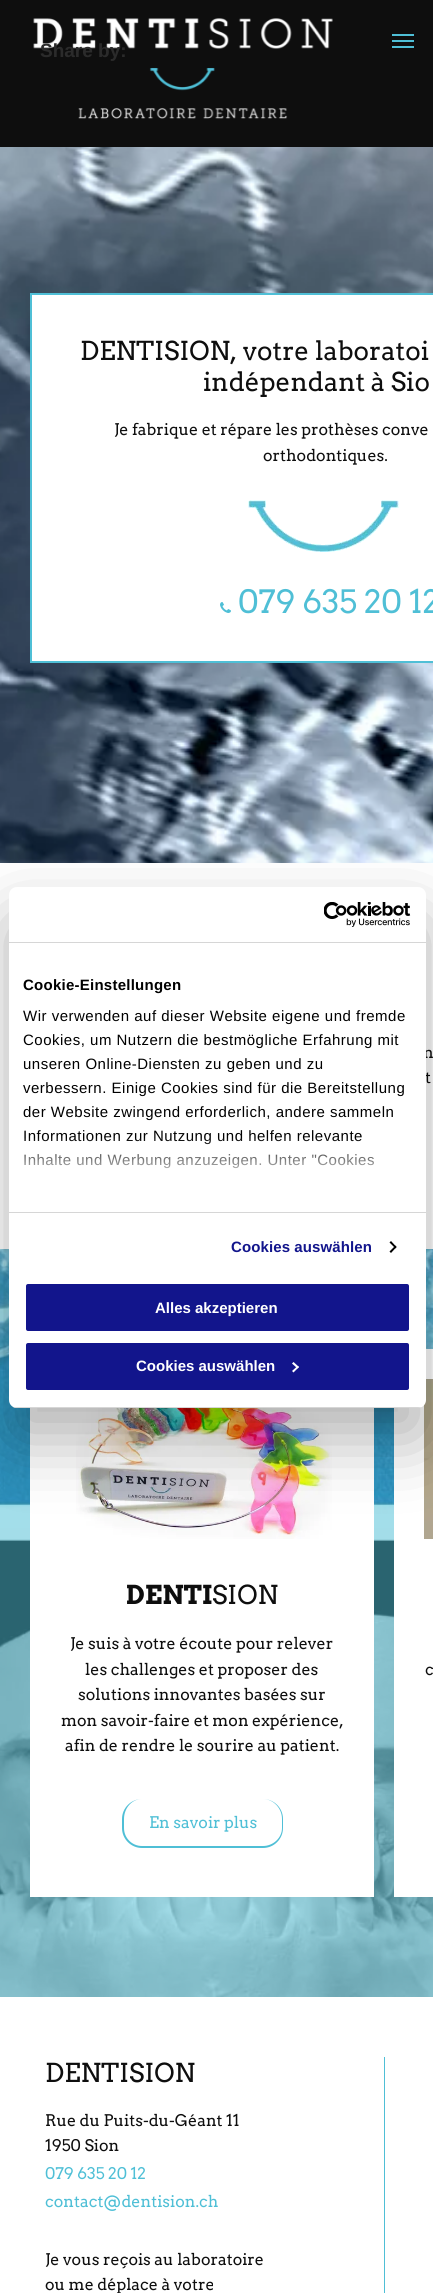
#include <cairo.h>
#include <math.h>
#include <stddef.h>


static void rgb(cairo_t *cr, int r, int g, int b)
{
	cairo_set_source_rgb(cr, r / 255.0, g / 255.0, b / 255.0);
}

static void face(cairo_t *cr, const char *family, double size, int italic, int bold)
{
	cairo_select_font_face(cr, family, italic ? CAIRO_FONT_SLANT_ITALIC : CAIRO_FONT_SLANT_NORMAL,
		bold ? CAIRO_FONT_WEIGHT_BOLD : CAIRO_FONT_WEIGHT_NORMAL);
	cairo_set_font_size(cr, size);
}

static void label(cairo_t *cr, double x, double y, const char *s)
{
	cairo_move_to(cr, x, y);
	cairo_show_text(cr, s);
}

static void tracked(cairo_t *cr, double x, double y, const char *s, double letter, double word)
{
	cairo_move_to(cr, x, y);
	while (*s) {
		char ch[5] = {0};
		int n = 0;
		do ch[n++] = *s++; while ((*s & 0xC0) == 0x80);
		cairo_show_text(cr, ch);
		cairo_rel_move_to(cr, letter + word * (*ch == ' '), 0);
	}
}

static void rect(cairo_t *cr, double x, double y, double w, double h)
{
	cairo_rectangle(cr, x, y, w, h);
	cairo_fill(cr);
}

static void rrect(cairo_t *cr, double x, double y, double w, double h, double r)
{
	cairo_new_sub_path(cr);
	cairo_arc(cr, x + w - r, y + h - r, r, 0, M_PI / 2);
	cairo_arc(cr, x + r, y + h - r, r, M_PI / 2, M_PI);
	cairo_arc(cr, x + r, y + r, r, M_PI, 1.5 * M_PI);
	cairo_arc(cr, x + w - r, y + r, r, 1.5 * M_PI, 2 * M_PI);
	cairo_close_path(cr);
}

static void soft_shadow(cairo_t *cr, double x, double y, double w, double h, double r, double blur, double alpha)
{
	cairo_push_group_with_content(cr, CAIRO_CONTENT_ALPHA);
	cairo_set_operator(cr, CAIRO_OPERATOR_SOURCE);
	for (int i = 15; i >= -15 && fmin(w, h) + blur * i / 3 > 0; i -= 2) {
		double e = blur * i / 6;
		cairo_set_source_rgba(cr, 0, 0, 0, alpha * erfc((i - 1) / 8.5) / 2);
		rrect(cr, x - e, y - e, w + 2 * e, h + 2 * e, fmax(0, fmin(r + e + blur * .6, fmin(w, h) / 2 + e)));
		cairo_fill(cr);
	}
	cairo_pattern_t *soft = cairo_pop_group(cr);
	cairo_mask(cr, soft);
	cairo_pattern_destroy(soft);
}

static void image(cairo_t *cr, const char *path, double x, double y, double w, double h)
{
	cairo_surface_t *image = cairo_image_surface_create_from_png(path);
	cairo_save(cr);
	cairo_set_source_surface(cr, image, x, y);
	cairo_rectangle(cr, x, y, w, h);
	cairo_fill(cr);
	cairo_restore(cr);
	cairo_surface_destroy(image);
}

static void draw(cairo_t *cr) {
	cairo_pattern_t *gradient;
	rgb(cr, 255, 255, 255);
	cairo_paint(cr);
	rgb(cr, 14, 14, 14);
	rect(cr, 0, 0, 433, 147);
	image(cr, "image0.png", 33, 18, 300, 101);
	face(cr, "Liberation Sans", 19, 0, 1);
	rgb(cr, 43, 43, 43);
	label(cr, 40, 57, "Share by:");
	rgb(cr, 79, 191, 214);
	rect(cr, 392, 34, 22, 2);
	rect(cr, 392, 40, 22, 2);
	rect(cr, 392, 46, 22, 2);
	image(cr, "image1.png", 0, 147, 433, 716);
	rgb(cr, 255, 255, 255);
	cairo_rectangle(cr, 31, 294, 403, 368);
	cairo_fill_preserve(cr);
	rgb(cr, 79, 191, 214);
	cairo_stroke(cr);
	face(cr, "Arvo", 26, 0, 0);
	rgb(cr, 14, 14, 14);
	label(cr, 80, 360, "DENTISION, votre laboratoi");
	label(cr, 203, 391, "indépendant à Sio");
	face(cr, "Arvo", 16, 0, 0);
	label(cr, 114, 435, "Je fabrique et répare les prothèses conve");
	label(cr, 263, 461, "orthodontiques.");
	image(cr, "image2.png", 248, 500, 151, 52);
	image(cr, "image3.png", 220, 602, 11, 11);
	face(cr, "Arvo", 32, 0, 0);
	rgb(cr, 79, 191, 214);
	label(cr, 238, 613, "079 635 20 12");
	face(cr, "Arvo", 16, 0, 0);
	rgb(cr, 14, 14, 14);
	label(cr, 423, 1058, "n");
	label(cr, 425, 1083, "t");
	image(cr, "image4.png", 0, 1249, 433, 748);
	rgb(cr, 255, 255, 255);
	rect(cr, 30, 1408, 344, 489);
	image(cr, "image5.png", 76, 1408, 256, 131);
	face(cr, "Arvo", 26, 0, 1);
	rgb(cr, 14, 14, 14);
	label(cr, 126, 1604, "DENTI");
	face(cr, "Arvo", 26, 0, 0);
	label(cr, 212, 1604, "SION");
	face(cr, "Arvo", 16, 0, 0);
	label(cr, 70, 1649, "Je suis à votre écoute pour relever");
	label(cr, 85, 1675, "les challenges et proposer des");
	label(cr, 78, 1700, "solutions innovantes basées sur");
	label(cr, 61, 1726, "mon savoir-faire et mon expérience,");
	label(cr, 65, 1751, "afin de rendre le sourire au patient.");
	rgb(cr, 79, 191, 214);
	cairo_set_fill_rule(cr, CAIRO_FILL_RULE_EVEN_ODD);
	cairo_new_path(cr);
	cairo_move_to(cr, 142, 1799);
	cairo_line_to(cr, 263, 1799);
	cairo_curve_to(cr, 274, 1799, 283, 1808, 283, 1819);
	cairo_line_to(cr, 283, 1828);
	cairo_curve_to(cr, 283, 1839, 274, 1848, 263, 1848);
	cairo_line_to(cr, 142, 1848);
	cairo_curve_to(cr, 131, 1848, 122, 1839, 122, 1828);
	cairo_line_to(cr, 122, 1819);
	cairo_curve_to(cr, 122, 1808, 131, 1799, 142, 1799);
	cairo_close_path(cr);
	cairo_move_to(cr, 142, 1799);
	cairo_line_to(cr, 263, 1799);
	cairo_curve_to(cr, 273, 1799, 282, 1808, 282, 1819);
	cairo_line_to(cr, 282, 1828);
	cairo_curve_to(cr, 282, 1838, 273, 1846, 263, 1846);
	cairo_line_to(cr, 142, 1846);
	cairo_curve_to(cr, 132, 1846, 124, 1838, 124, 1828);
	cairo_line_to(cr, 124, 1819);
	cairo_curve_to(cr, 124, 1808, 132, 1799, 142, 1799);
	cairo_close_path(cr);
	cairo_fill(cr);
	label(cr, 149, 1828, "En savoir plus");
	rgb(cr, 255, 255, 255);
	rect(cr, 394, 1349, 39, 548);
	image(cr, "image6.png", 424, 1379, 9, 160);
	rgb(cr, 14, 14, 14);
	label(cr, 425, 1675, "c");
	face(cr, "Arvo", 26, 0, 0);
	label(cr, 45, 2082, "DENTISION");
	face(cr, "Arvo", 16, 0, 0);
	label(cr, 45, 2126, "Rue du Puits-du-Géant 11");
	label(cr, 45, 2151, "1950 Sion");
	rgb(cr, 79, 191, 214);
	label(cr, 45, 2179, "079 635 20 12");
	label(cr, 45, 2207, "contact@dentision.ch");
	rgb(cr, 14, 14, 14);
	label(cr, 45, 2265, "Je vous reçois au laboratoire");
	label(cr, 45, 2290, "ou me déplace à votre");
	rgb(cr, 79, 191, 214);
	rect(cr, 384, 2057, 1, 236);
	rgb(cr, 0, 0, 0);
	soft_shadow(cr, 9, 919, 417, 521, 8, 34, 0.3);
	rgb(cr, 255, 255, 255);
	rrect(cr, 9, 887, 417, 521, 8);
	cairo_fill(cr);
	rgb(cr, 214, 214, 214);
	rect(cr, 9, 942, 417, 1);
	image(cr, "image7.png", 324, 902, 87, 25);
	rect(cr, 9, 1212, 417, 1);
	face(cr, "Liberation Sans", 15, 0, 1);
	rgb(cr, 0, 0, 0);
	tracked(cr, 23, 990, "Cookie-Einstellungen", 0.25, 0);
	face(cr, "Liberation Sans", 15, 0, 0);
	tracked(cr, 23, 1021, "Wir verwenden auf dieser Website eigene und fremde", 0.5, 0);
	tracked(cr, 23, 1045, "Cookies, um Nutzern die bestmögliche Erfahrung mit", 0.5, 0);
	tracked(cr, 23, 1069, "unseren Online-Diensten zu geben und zu", 0.5, 0);
	tracked(cr, 23, 1093, "verbessern. Einige Cookies sind für die Bereitstellung", 0.5, 0);
	tracked(cr, 23, 1117, "der Website zwingend erforderlich, andere sammeln", 0.5, 0);
	tracked(cr, 23, 1141, "Informationen zur Nutzung und helfen relevante", 0.5, 0);
	tracked(cr, 23, 1165, "Inhalte und Werbung anzuzeigen. Unter \"Cookies", 0.5, 0);
	gradient = cairo_pattern_create_linear(211, 1212, 211, 1137);
	cairo_pattern_add_color_stop_rgba(gradient, 0, 1, 1, 1, 1);
	cairo_pattern_add_color_stop_rgba(gradient, 0.5, 1, 1, 1, 0.8);
	cairo_pattern_add_color_stop_rgba(gradient, 1, 1, 1, 1, 0);
	cairo_set_source(cr, gradient);
	cairo_pattern_destroy(gradient);
	rect(cr, 24, 1138, 350, 31);
	face(cr, "Liberation Sans", 15, 0, 1);
	rgb(cr, 18, 21, 140);
	tracked(cr, 231, 1252, "Cookies auswählen", 0.1, 0);
	rgb(cr, 0, 0, 0);
	cairo_set_fill_rule(cr, CAIRO_FILL_RULE_WINDING);
	cairo_new_path(cr);
	cairo_move_to(cr, 391, 1241);
	cairo_line_to(cr, 396.5, 1247);
	cairo_line_to(cr, 395.5, 1248.5);
	cairo_line_to(cr, 389.5, 1242.5);
	cairo_close_path(cr);
	cairo_fill(cr);
	cairo_new_path(cr);
	cairo_move_to(cr, 395.5, 1245.5);
	cairo_line_to(cr, 396.5, 1247);
	cairo_line_to(cr, 391, 1253);
	cairo_line_to(cr, 389.5, 1251.5);
	cairo_close_path(cr);
	cairo_fill(cr);
	cairo_save(cr);
	rrect(cr, 9, 887, 417, 521, 8);
	cairo_clip(cr);
	rgb(cr, 214, 214, 214);
	rect(cr, 9, 1407, 417, 1);
	cairo_restore(cr);
	rgb(cr, 18, 21, 140);
	rrect(cr, 25, 1283, 385, 49, 3);
	cairo_fill_preserve(cr);
	rgb(cr, 255, 255, 255);
	cairo_stroke(cr);
	label(cr, 155, 1313, "Alles akzeptieren");
	rgb(cr, 18, 21, 140);
	rrect(cr, 25, 1342, 385, 49, 3);
	cairo_fill_preserve(cr);
	rgb(cr, 255, 255, 255);
	cairo_stroke(cr);
	label(cr, 136, 1371, "Cookies auswählen");
	cairo_new_path(cr);
	cairo_move_to(cr, 293.5, 1362);
	cairo_line_to(cr, 299, 1367);
	cairo_line_to(cr, 297.5, 1368.5);
	cairo_line_to(cr, 292, 1363.5);
	cairo_close_path(cr);
	cairo_fill(cr);
	cairo_new_path(cr);
	cairo_move_to(cr, 297.5, 1366);
	cairo_line_to(cr, 299, 1367);
	cairo_line_to(cr, 293.5, 1372.5);
	cairo_line_to(cr, 292, 1371);
	cairo_close_path(cr);
	cairo_fill(cr);
}

int main(void) {
	cairo_surface_t *surface = cairo_image_surface_create(CAIRO_FORMAT_RGB24, 433, 2293);
	cairo_t *cr = cairo_create(surface);
	cairo_font_options_t *options = cairo_font_options_create();
	cairo_font_options_set_hint_metrics(options, CAIRO_HINT_METRICS_OFF);
	cairo_font_options_set_hint_style(options, CAIRO_HINT_STYLE_NONE);
	cairo_set_font_options(cr, options);
	cairo_set_miter_limit(cr, 4);
	draw(cr);
	cairo_surface_write_to_png(surface, "render.png");
	cairo_font_options_destroy(options);
	cairo_destroy(cr);
	cairo_surface_destroy(surface);
	return 0;
}
